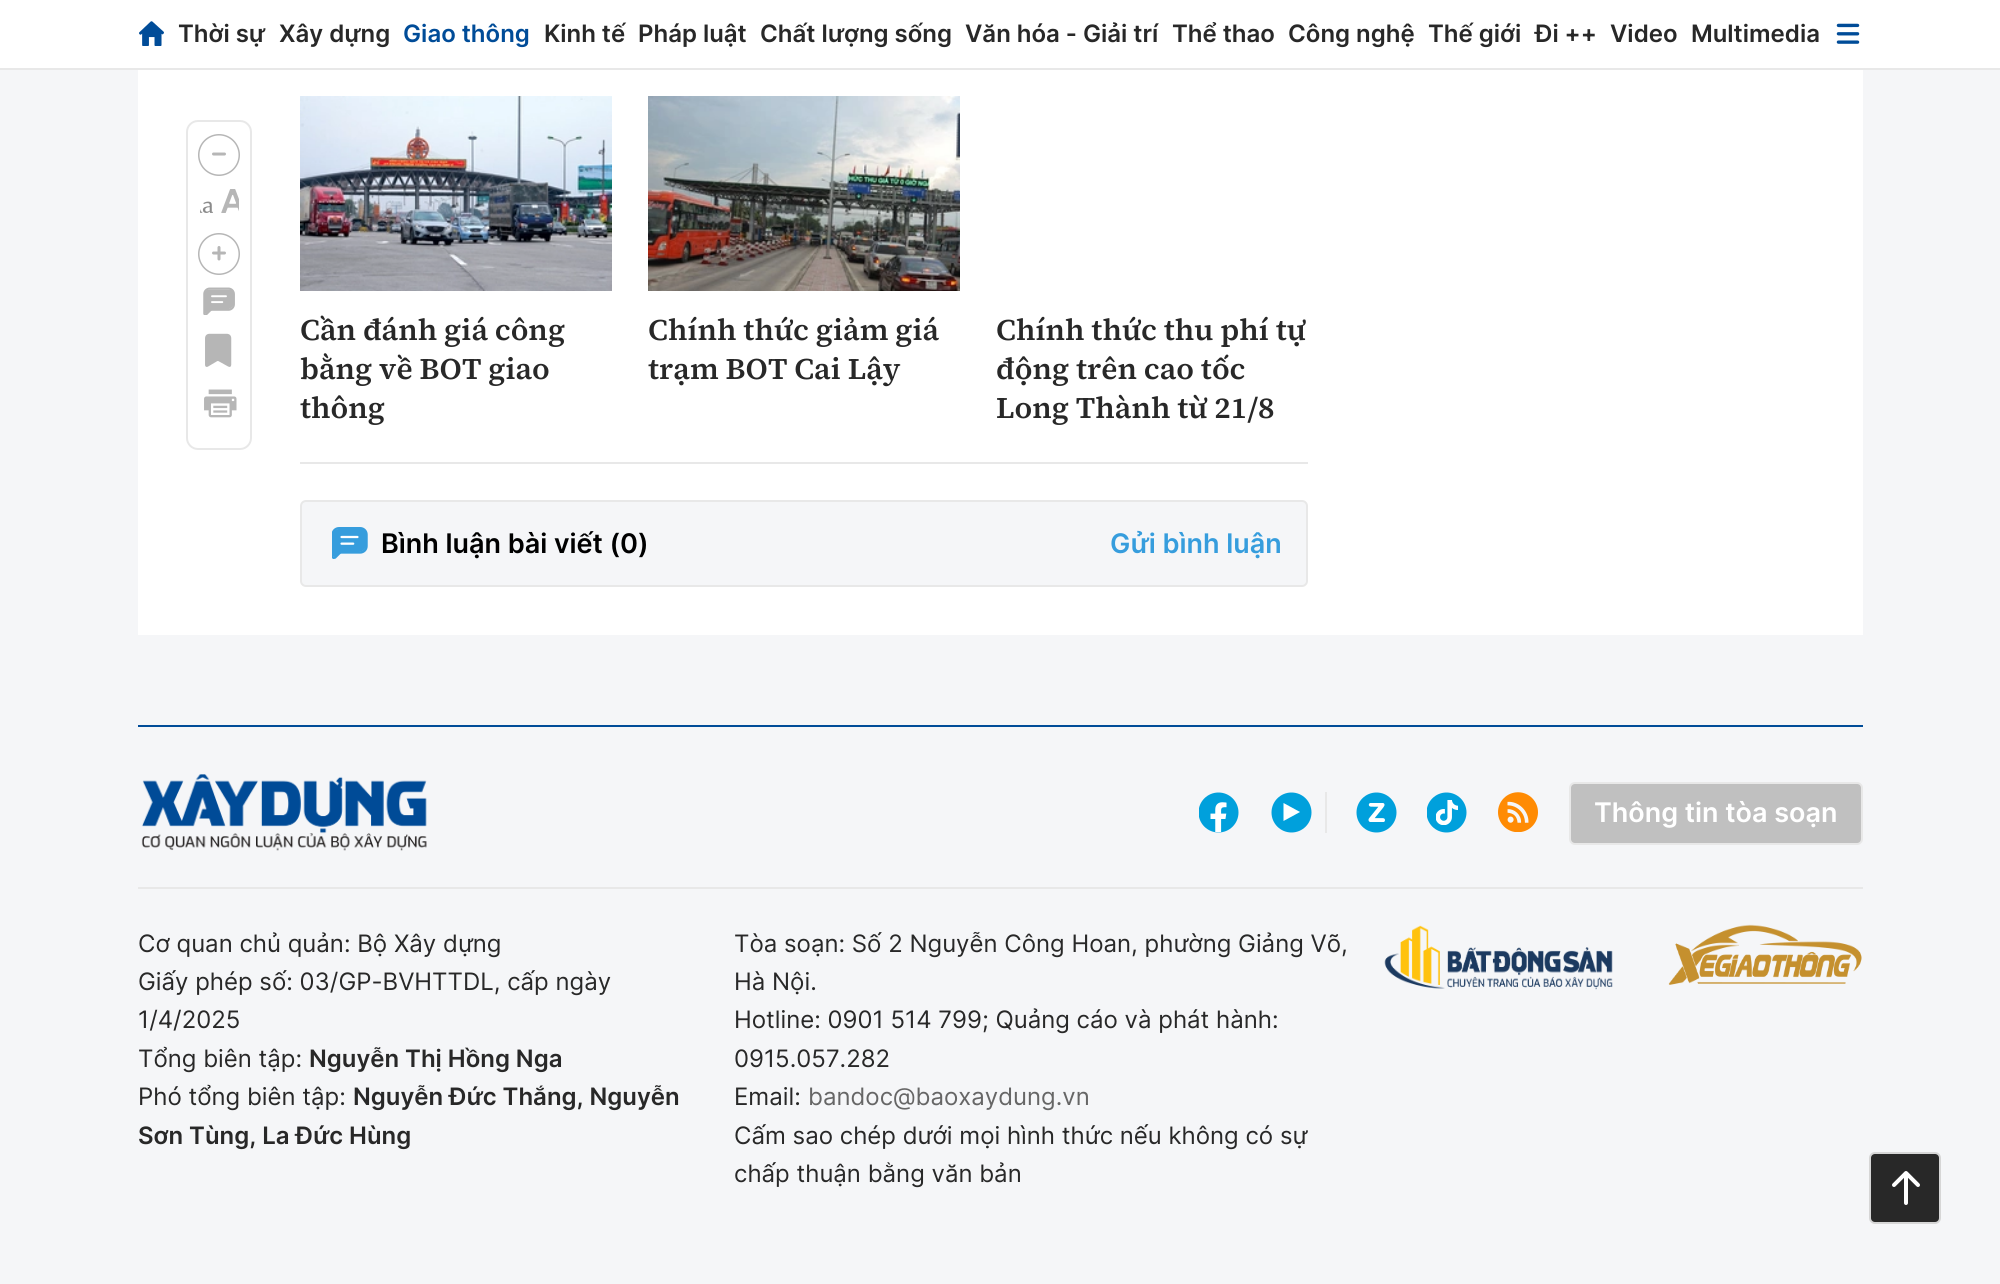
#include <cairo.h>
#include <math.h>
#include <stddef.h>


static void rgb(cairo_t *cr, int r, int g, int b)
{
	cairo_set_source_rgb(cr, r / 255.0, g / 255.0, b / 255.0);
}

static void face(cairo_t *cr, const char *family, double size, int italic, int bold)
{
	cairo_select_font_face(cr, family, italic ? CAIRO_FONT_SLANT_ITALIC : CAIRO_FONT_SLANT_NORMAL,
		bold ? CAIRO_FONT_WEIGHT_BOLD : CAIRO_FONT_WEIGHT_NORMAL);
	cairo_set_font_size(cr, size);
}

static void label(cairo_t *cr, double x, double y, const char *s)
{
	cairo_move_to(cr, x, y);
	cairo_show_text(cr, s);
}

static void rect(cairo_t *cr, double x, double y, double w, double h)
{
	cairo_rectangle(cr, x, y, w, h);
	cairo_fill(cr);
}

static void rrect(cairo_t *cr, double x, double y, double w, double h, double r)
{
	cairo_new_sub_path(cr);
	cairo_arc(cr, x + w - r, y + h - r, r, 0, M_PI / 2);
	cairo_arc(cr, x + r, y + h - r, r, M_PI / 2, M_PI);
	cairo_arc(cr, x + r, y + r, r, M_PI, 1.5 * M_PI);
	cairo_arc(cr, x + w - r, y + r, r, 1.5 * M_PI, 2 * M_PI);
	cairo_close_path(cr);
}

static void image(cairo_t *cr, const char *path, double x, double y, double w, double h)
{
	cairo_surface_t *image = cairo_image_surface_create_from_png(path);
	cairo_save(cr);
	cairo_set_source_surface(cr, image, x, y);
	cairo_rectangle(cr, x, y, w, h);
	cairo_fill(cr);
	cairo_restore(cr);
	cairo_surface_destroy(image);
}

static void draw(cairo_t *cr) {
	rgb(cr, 245, 246, 248);
	cairo_paint(cr);
	rgb(cr, 255, 255, 255);
	rect(cr, 0, 0, 2000, 68);
	rgb(cr, 232, 232, 232);
	rect(cr, 0, 68, 2000, 2);
	image(cr, "image0.png", 139, 21, 25, 25);
	face(cr, "Inter SemiBold", 24, 0, 0);
	rgb(cr, 40, 40, 40);
	label(cr, 178, 42, "Thời sự");
	label(cr, 279, 42, "Xây dựng");
	rgb(cr, 0, 76, 152);
	label(cr, 403, 42, "Giao thông");
	rgb(cr, 40, 40, 40);
	label(cr, 544, 42, "Kinh tế");
	label(cr, 638, 42, "Pháp luật");
	label(cr, 760, 42, "Chất lượng sống");
	label(cr, 965, 42, "Văn hóa - Giải trí");
	label(cr, 1172, 42, "Thể thao");
	label(cr, 1288, 42, "Công nghệ");
	label(cr, 1428, 42, "Thế giới");
	label(cr, 1535, 42, "Đi ++");
	label(cr, 1610, 42, "Video");
	label(cr, 1691, 42, "Multimedia");
	image(cr, "image1.png", 1836, 23, 24, 21);
	rgb(cr, 255, 255, 255);
	rect(cr, 138, 70, 1725, 565);
	rrect(cr, 187, 121, 64, 328, 11);
	rgb(cr, 232, 232, 232);
	cairo_stroke(cr);
	cairo_new_path(cr);
	cairo_move_to(cr, 224.5, 154);
	cairo_line_to(cr, 213.5, 154);
	rgb(cr, 182, 182, 182);
	cairo_set_line_width(cr, 3);
	cairo_set_line_cap(cr, CAIRO_LINE_CAP_ROUND);
	cairo_stroke(cr);
	cairo_arc(cr, 219, 155, 20.25, 0, 2 * M_PI);
	cairo_set_line_width(cr, 1.5);
	cairo_set_line_cap(cr, CAIRO_LINE_CAP_BUTT);
	cairo_stroke(cr);
	image(cr, "image2.png", 200, 201, 13, 12);
	image(cr, "image3.png", 221, 189, 18, 24);
	cairo_new_path(cr);
	cairo_move_to(cr, 219, 247.5);
	cairo_line_to(cr, 219, 259);
	cairo_move_to(cr, 224.5, 253);
	cairo_line_to(cr, 213.5, 253);
	cairo_set_line_width(cr, 3);
	cairo_set_line_cap(cr, CAIRO_LINE_CAP_ROUND);
	cairo_stroke(cr);
	cairo_arc(cr, 219, 254, 20.25, 0, 2 * M_PI);
	cairo_set_line_width(cr, 1.5);
	cairo_set_line_cap(cr, CAIRO_LINE_CAP_BUTT);
	cairo_stroke(cr);
	image(cr, "image4.png", 203, 287, 32, 28);
	image(cr, "image5.png", 205, 333, 27, 34);
	image(cr, "image6.png", 204, 389, 33, 29);
	rgb(cr, 232, 232, 232);
	rect(cr, 300, 462, 1008, 2);
	image(cr, "image7.png", 300, 96, 312, 195);
	face(cr, "Source Serif 4 SemiBold", 30, 0, 0);
	rgb(cr, 40, 40, 40);
	label(cr, 300, 340, "Cần đánh giá công");
	label(cr, 300, 379, "bằng về BOT giao");
	label(cr, 300, 418, "thông");
	image(cr, "image8.png", 648, 96, 312, 195);
	label(cr, 648, 340, "Chính thức giảm giá");
	label(cr, 648, 379, "trạm BOT Cai Lậy");
	label(cr, 996, 340, "Chính thức thu phí tự");
	label(cr, 996, 379, "động trên cao tốc");
	label(cr, 996, 418, "Long Thành từ 21/8");
	rgb(cr, 245, 246, 248);
	rrect(cr, 301, 501, 1006, 85, 5);
	cairo_fill_preserve(cr);
	rgb(cr, 232, 232, 232);
	cairo_set_line_width(cr, 2);
	cairo_stroke(cr);
	image(cr, "image9.png", 332, 527, 36, 32);
	face(cr, "Inter SemiBold", 27, 0, 0);
	rgb(cr, 0, 0, 0);
	label(cr, 381, 553, "Bình luận bài viết (0)");
	rgb(cr, 54, 157, 221);
	label(cr, 1110, 553, "Gửi bình luận");
	rgb(cr, 0, 76, 152);
	rect(cr, 138, 725, 1725, 2);
	rgb(cr, 232, 232, 232);
	rect(cr, 138, 887, 1725, 2);
	image(cr, "image10.png", 141, 774, 286, 77);
	image(cr, "image11.png", 1199, 792, 40, 41);
	rect(cr, 1325, 792, 2, 41);
	rgb(cr, 0, 160, 220);
	cairo_arc(cr, 1291.5, 812.5, 20, 0, 2 * M_PI);
	cairo_fill(cr);
	rgb(cr, 255, 255, 255);
	cairo_new_path(cr);
	cairo_move_to(cr, 1283.5, 821);
	cairo_line_to(cr, 1300, 812);
	cairo_line_to(cr, 1283.5, 803);
	cairo_close_path(cr);
	cairo_fill(cr);
	image(cr, "image12.png", 1356, 792, 41, 41);
	image(cr, "image13.png", 1427, 792, 40, 41);
	image(cr, "image14.png", 1498, 792, 40, 40);
	rgb(cr, 192, 192, 192);
	rrect(cr, 1570, 783, 292, 61, 5);
	cairo_fill_preserve(cr);
	rgb(cr, 232, 232, 232);
	cairo_stroke(cr);
	rgb(cr, 255, 255, 255);
	label(cr, 1594, 822, "Thông tin tòa soạn");
	face(cr, "Inter", 24, 0, 0);
	rgb(cr, 40, 40, 40);
	label(cr, 138, 952, "Cơ quan chủ quản: Bộ Xây dựng");
	label(cr, 138, 990, "Giấy phép số: 03/GP-BVHTTDL, cấp ngày");
	label(cr, 138, 1028, "1/4/2025");
	label(cr, 138, 1067, "Tổng biên tập:");
	face(cr, "Inter SemiBold", 24, 0, 0);
	label(cr, 309, 1067, "Nguyễn Thị Hồng Nga");
	face(cr, "Inter", 24, 0, 0);
	label(cr, 138, 1105, "Phó tổng biên tập:");
	face(cr, "Inter SemiBold", 24, 0, 0);
	label(cr, 353, 1105, "Nguyễn Đức Thắng, Nguyễn");
	label(cr, 138, 1144, "Sơn Tùng, La Đức Hùng");
	face(cr, "Inter", 24, 0, 0);
	label(cr, 734, 952, "Tòa soạn: Số 2 Nguyễn Công Hoan, phường Giảng Võ,");
	label(cr, 734, 990, "Hà Nội.");
	label(cr, 734, 1028, "Hotline: 0901 514 799; Quảng cáo và phát hành:");
	label(cr, 734, 1067, "0915.057.282");
	label(cr, 734, 1105, "Email:");
	rgb(cr, 102, 102, 102);
	label(cr, 808, 1105, "bandoc@baoxaydung.vn");
	rgb(cr, 40, 40, 40);
	label(cr, 734, 1144, "Cấm sao chép dưới mọi hình thức nếu không có sự");
	label(cr, 734, 1182, "chấp thuận bằng văn bản");
	image(cr, "image15.png", 1384, 925, 229, 65);
	image(cr, "image16.png", 1668, 924, 194, 61);
	rrect(cr, 1870, 1153, 70, 70, 5);
	cairo_fill_preserve(cr);
	rgb(cr, 214, 214, 214);
	cairo_stroke(cr);
	image(cr, "image17.png", 1892, 1171, 28, 34);
}

int main(void) {
	cairo_surface_t *surface = cairo_image_surface_create(CAIRO_FORMAT_RGB24, 2000, 1284);
	cairo_t *cr = cairo_create(surface);
	cairo_font_options_t *options = cairo_font_options_create();
	cairo_font_options_set_hint_metrics(options, CAIRO_HINT_METRICS_OFF);
	cairo_font_options_set_hint_style(options, CAIRO_HINT_STYLE_NONE);
	cairo_set_font_options(cr, options);
	cairo_set_miter_limit(cr, 4);
	draw(cr);
	cairo_surface_write_to_png(surface, "render.png");
	cairo_font_options_destroy(options);
	cairo_destroy(cr);
	cairo_surface_destroy(surface);
	return 0;
}
